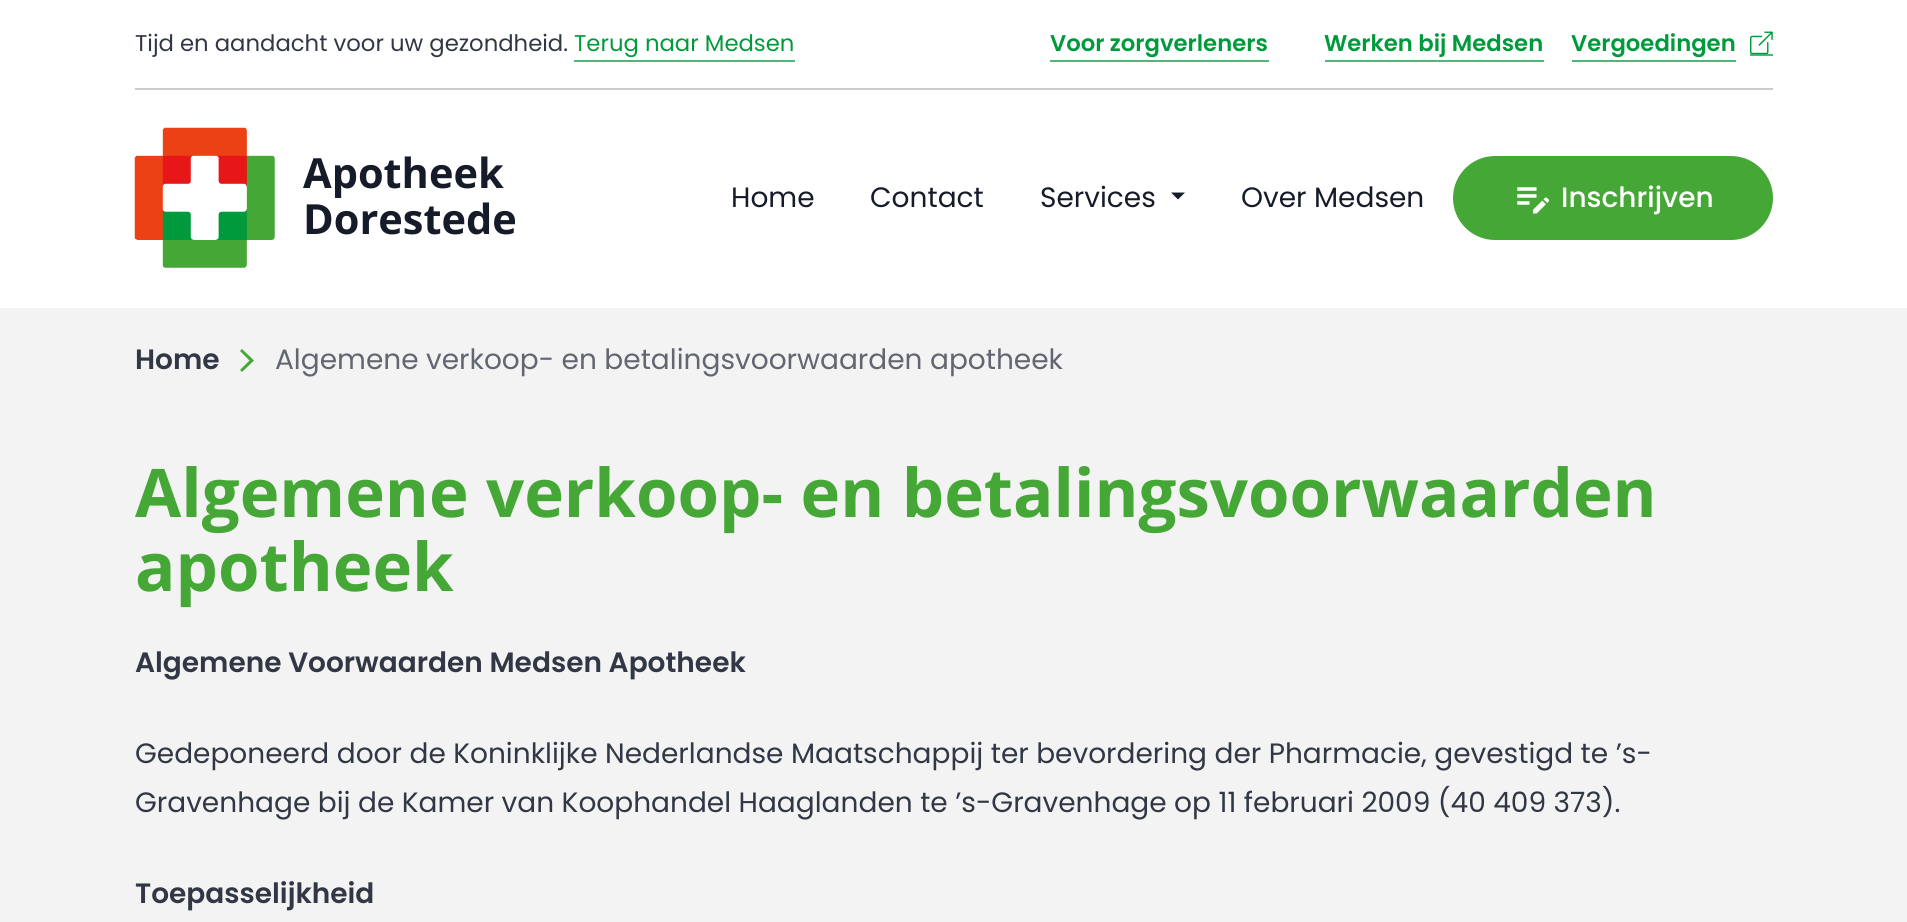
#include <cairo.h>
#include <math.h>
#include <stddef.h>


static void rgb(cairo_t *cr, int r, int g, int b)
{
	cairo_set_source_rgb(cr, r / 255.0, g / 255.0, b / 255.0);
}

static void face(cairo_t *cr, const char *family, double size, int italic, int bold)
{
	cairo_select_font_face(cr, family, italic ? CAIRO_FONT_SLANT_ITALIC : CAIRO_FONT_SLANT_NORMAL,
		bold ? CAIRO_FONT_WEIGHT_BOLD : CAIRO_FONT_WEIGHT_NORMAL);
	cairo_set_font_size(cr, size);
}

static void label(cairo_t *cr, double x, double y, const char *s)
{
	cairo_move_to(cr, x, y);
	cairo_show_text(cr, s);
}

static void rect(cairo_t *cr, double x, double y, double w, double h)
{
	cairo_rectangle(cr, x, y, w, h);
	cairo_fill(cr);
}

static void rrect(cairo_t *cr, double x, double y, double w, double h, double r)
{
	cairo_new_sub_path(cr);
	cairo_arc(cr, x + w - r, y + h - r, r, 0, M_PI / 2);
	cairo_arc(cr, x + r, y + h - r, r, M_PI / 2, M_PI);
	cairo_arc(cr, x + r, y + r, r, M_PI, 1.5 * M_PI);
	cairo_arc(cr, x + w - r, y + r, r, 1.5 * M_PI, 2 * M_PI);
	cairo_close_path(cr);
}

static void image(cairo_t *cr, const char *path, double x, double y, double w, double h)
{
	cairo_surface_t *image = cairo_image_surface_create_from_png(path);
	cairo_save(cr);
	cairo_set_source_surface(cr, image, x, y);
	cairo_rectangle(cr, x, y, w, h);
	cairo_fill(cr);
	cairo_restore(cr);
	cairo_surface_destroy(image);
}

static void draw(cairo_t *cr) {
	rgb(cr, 255, 255, 255);
	cairo_paint(cr);
	rgb(cr, 202, 202, 202);
	rect(cr, 135, 88, 1638, 2);
	face(cr, "Poppins", 22.75, 0, 0);
	rgb(cr, 49, 55, 68);
	label(cr, 135, 51, "Tijd en aandacht voor uw gezondheid.");
	rgb(cr, 0, 154, 60);
	label(cr, 574, 51, "Terug naar Medsen");
	rgb(cr, 77, 184, 119);
	rect(cr, 574, 60, 221, 2);
	face(cr, "Poppins SemiBold", 22.75, 0, 0);
	rgb(cr, 0, 154, 60);
	label(cr, 1050, 51, "Voor zorgverleners");
	rgb(cr, 77, 184, 119);
	rect(cr, 1050, 60, 219, 2);
	rgb(cr, 0, 154, 60);
	label(cr, 1324, 51, "Werken bij Medsen");
	rgb(cr, 77, 184, 119);
	rect(cr, 1325, 60, 219, 2);
	rect(cr, 1572, 60, 164, 2);
	rect(cr, 1750, 54, 23, 2);
	rgb(cr, 0, 154, 60);
	label(cr, 1571, 51, "Vergoedingen");
	image(cr, "image0.png", 1750, 31, 23, 24);
	image(cr, "image1.png", 134, 127, 141, 141);
	face(cr, "Open Sans", 41.5, 0, 1);
	rgb(cr, 21, 27, 41);
	label(cr, 303, 188, "Apotheek");
	label(cr, 303, 234, "Dorestede");
	face(cr, "Poppins", 28, 0, 0);
	label(cr, 731, 207, "Home");
	label(cr, 870, 207, "Contact");
	label(cr, 1040, 207, "Services");
	cairo_new_path(cr);
	cairo_move_to(cr, 1171, 192.5);
	cairo_line_to(cr, 1185, 192.5);
	cairo_line_to(cr, 1178, 199.5);
	cairo_close_path(cr);
	cairo_fill(cr);
	label(cr, 1241, 207, "Over Medsen");
	rgb(cr, 69, 167, 53);
	rrect(cr, 1455, 158, 316, 80, 40);
	cairo_fill_preserve(cr);
	cairo_set_line_width(cr, 4);
	cairo_stroke(cr);
	image(cr, "image2.png", 1517, 187, 32, 27);
	face(cr, "Poppins Medium", 28, 0, 0);
	rgb(cr, 255, 255, 255);
	label(cr, 1561, 207, "Inschrijven");
	rgb(cr, 243, 243, 243);
	rect(cr, 0, 308, 1907, 614);
	face(cr, "Poppins SemiBold", 28, 0, 0);
	rgb(cr, 49, 55, 68);
	label(cr, 135, 369, "Home");
	rgb(cr, 69, 167, 53);
	cairo_new_path(cr);
	cairo_move_to(cr, 240, 370);
	cairo_line_to(cr, 242, 372);
	cairo_line_to(cr, 254, 360.5);
	cairo_line_to(cr, 242, 349);
	cairo_line_to(cr, 240, 351);
	cairo_line_to(cr, 249.5, 360.5);
	cairo_close_path(cr);
	cairo_fill(cr);
	face(cr, "Poppins", 28, 0, 0);
	rgb(cr, 98, 102, 112);
	label(cr, 275, 369, "Algemene verkoop- en betalingsvoorwaarden apotheek");
	face(cr, "Open Sans", 67.1, 0, 1);
	rgb(cr, 69, 167, 53);
	label(cr, 135, 517, "Algemene verkoop- en betalingsvoorwaarden");
	label(cr, 135, 591, "apotheek");
	face(cr, "Poppins SemiBold", 28, 0, 0);
	rgb(cr, 49, 55, 68);
	label(cr, 135, 672, "Algemene Voorwaarden Medsen Apotheek");
	face(cr, "Poppins", 28, 0, 0);
	label(cr, 135, 763, "Gedeponeerd door de Koninklijke Nederlandse Maatschappij ter bevordering der Pharmacie, gevestigd te ’s-");
	label(cr, 135, 812, "Gravenhage bij de Kamer van Koophandel Haaglanden te ’s-Gravenhage op 11 februari 2009 (40 409 373).");
	face(cr, "Poppins SemiBold", 28, 0, 0);
	label(cr, 135, 903, "Toepasselijkheid");
}

int main(void) {
	cairo_surface_t *surface = cairo_image_surface_create(CAIRO_FORMAT_RGB24, 1907, 922);
	cairo_t *cr = cairo_create(surface);
	cairo_font_options_t *options = cairo_font_options_create();
	cairo_font_options_set_hint_metrics(options, CAIRO_HINT_METRICS_OFF);
	cairo_font_options_set_hint_style(options, CAIRO_HINT_STYLE_NONE);
	cairo_set_font_options(cr, options);
	cairo_set_miter_limit(cr, 4);
	draw(cr);
	cairo_surface_write_to_png(surface, "render.png");
	cairo_font_options_destroy(options);
	cairo_destroy(cr);
	cairo_surface_destroy(surface);
	return 0;
}
